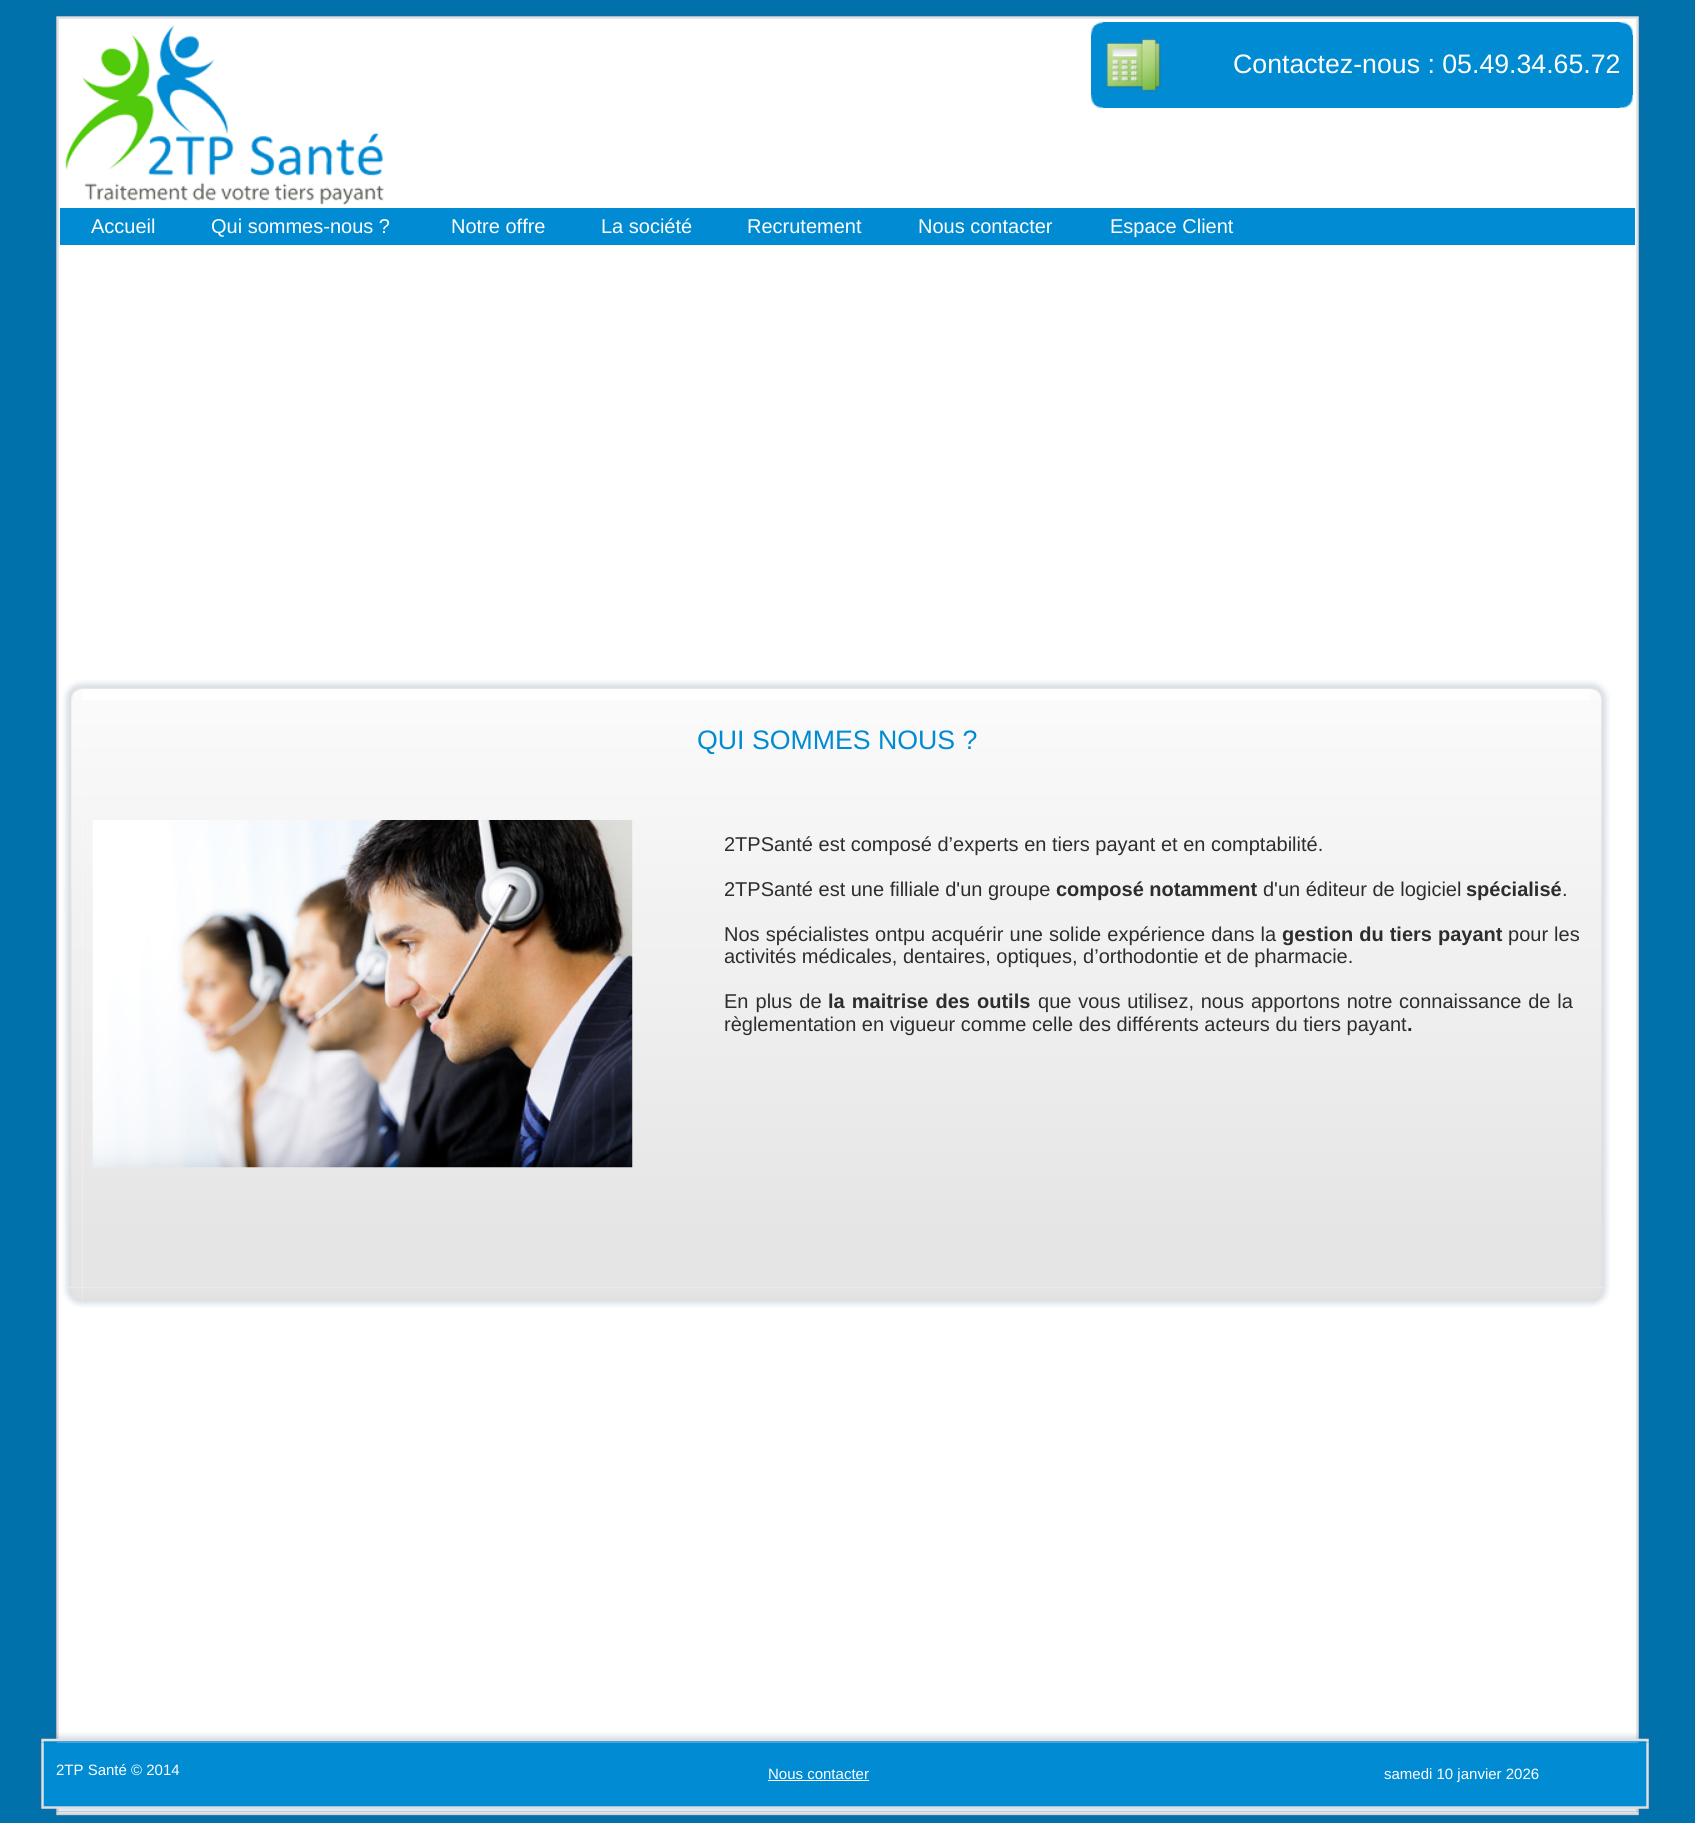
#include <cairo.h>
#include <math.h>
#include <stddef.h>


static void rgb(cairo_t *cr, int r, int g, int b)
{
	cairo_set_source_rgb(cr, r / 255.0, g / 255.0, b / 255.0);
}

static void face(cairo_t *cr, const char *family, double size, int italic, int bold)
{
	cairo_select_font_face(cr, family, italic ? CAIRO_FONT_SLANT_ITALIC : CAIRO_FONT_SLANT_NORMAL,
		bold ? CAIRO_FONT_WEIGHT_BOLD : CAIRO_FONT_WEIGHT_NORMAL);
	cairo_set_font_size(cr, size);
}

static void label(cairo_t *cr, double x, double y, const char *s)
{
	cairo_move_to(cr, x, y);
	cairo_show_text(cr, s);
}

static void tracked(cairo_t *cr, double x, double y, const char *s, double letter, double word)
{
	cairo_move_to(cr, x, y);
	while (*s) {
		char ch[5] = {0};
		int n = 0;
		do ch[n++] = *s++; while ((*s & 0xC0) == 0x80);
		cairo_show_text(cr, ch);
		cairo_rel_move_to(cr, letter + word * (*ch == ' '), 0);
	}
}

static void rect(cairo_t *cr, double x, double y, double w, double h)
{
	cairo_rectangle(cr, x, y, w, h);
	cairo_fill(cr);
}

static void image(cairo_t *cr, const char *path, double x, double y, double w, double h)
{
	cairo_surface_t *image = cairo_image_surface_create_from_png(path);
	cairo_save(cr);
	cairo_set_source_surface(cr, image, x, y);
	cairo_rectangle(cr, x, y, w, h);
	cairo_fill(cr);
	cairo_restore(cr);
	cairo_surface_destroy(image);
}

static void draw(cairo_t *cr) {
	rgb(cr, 0, 113, 171);
	cairo_paint(cr);
	image(cr, "image0.png", 53, 13, 7, 7);
	image(cr, "image1.png", 60, 12, 1575, 8);
	image(cr, "image2.png", 1635, 13, 7, 7);
	image(cr, "image3.png", 52, 20, 8, 1792);
	rgb(cr, 255, 255, 255);
	rect(cr, 60, 20, 1575, 1791);
	image(cr, "image4.png", 65, 24, 319, 181);
	image(cr, "image5.png", 1091, 22, 12, 13);
	rgb(cr, 0, 139, 210);
	rect(cr, 1103, 22, 517, 13);
	image(cr, "image6.png", 1620, 22, 13, 13);
	rect(cr, 1091, 35, 542, 60);
	image(cr, "image7.png", 1106, 38, 56, 54);
	face(cr, "Liberation Sans", 26.7, 0, 0);
	rgb(cr, 255, 255, 255);
	label(cr, 1233, 73, "Contactez-nous : 05.49.34.65.72");
	image(cr, "image8.png", 1091, 95, 12, 13);
	rgb(cr, 0, 139, 210);
	rect(cr, 1103, 95, 517, 13);
	image(cr, "image9.png", 1620, 95, 13, 13);
	rect(cr, 60, 208, 1575, 37);
	face(cr, "Liberation Sans", 20, 0, 0);
	rgb(cr, 255, 255, 255);
	label(cr, 91, 233, "Accueil");
	label(cr, 211, 233, "Qui sommes-nous ?");
	label(cr, 451, 233, "Notre offre");
	label(cr, 601, 233, "La société");
	label(cr, 747, 233, "Recrutement");
	label(cr, 918, 233, "Nous contacter");
	label(cr, 1110, 233, "Espace Client");
	image(cr, "image10.png", 63, 680, 20, 20);
	image(cr, "image11.png", 82, 680, 1508, 9);
	image(cr, "image12.png", 1590, 680, 20, 20);
	image(cr, "image13.png", 62, 700, 21, 588);
	image(cr, "image14.png", 82, 700, 1508, 588);
	face(cr, "Liberation Sans", 26.7, 0, 0);
	rgb(cr, 0, 139, 210);
	label(cr, 697, 749, "QUI SOMMES NOUS ?");
	image(cr, "image15.png", 92, 820, 541, 348);
	face(cr, "Liberation Sans", 20, 0, 0);
	rgb(cr, 45, 45, 45);
	label(cr, 724, 851, "2TPSanté est composé d’experts en tiers payant et en comptabilité.");
	label(cr, 724, 896, "2TPSanté est une filliale d'un groupe");
	face(cr, "Liberation Sans", 20, 0, 1);
	label(cr, 1056, 896, "composé notamment");
	face(cr, "Liberation Sans", 20, 0, 0);
	label(cr, 1263, 896, "d'un éditeur de logiciel");
	face(cr, "Liberation Sans", 20, 0, 1);
	label(cr, 1466, 896, "spécialisé");
	face(cr, "Liberation Sans", 20, 0, 0);
	label(cr, 1562, 896, ".");
	tracked(cr, 724, 941, "Nos spécialistes ontpu acquérir une solide expérience dans la", 0, 0.5);
	face(cr, "Liberation Sans", 20, 0, 1);
	tracked(cr, 1282, 941, "gestion du tiers payant", 0, 0.5);
	face(cr, "Liberation Sans", 20, 0, 0);
	tracked(cr, 1508, 941, "pour les", 0, 0.5);
	label(cr, 724, 963, "activités médicales, dentaires, optiques, d’orthodontie et de pharmacie.");
	tracked(cr, 724, 1008, "En plus de", 0, 1.5);
	face(cr, "Liberation Sans", 20, 0, 1);
	tracked(cr, 828, 1008, "la maitrise des outils", 0, 1.5);
	face(cr, "Liberation Sans", 20, 0, 0);
	tracked(cr, 1038, 1008, "que vous utilisez, nous apportons notre connaissance de la", 0, 1.25);
	label(cr, 724, 1031, "règlementation en vigueur comme celle des différents acteurs du tiers payant");
	face(cr, "Liberation Sans", 20, 0, 1);
	label(cr, 1407, 1031, ".");
	image(cr, "image16.png", 1590, 700, 20, 588);
	image(cr, "image17.png", 63, 1287, 20, 20);
	image(cr, "image18.png", 82, 1287, 1508, 21);
	image(cr, "image19.png", 1590, 1287, 20, 20);
	image(cr, "image20.png", 37, 1735, 8, 8);
	image(cr, "image28.png", 1635, 20, 8, 1792);
	image(cr, "image21.png", 45, 1732, 1600, 11);
	image(cr, "image22.png", 1645, 1735, 8, 8);
	image(cr, "image23.png", 37, 1742, 8, 63);
	rgb(cr, 0, 139, 210);
	rect(cr, 45, 1743, 1600, 62);
	cairo_set_source_rgba(cr, 0, 0.545, 0.82, 0.5);
	rect(cr, 45, 1742, 1600, 1);
	face(cr, "Liberation Sans", 15, 0, 0);
	rgb(cr, 255, 255, 255);
	label(cr, 56, 1775, "2TP Santé © 2014");
	label(cr, 768, 1779, "Nous contacter");
	rect(cr, 768, 1780, 101, 1);
	label(cr, 1384, 1779, "samedi 10 janvier 2026");
	image(cr, "image24.png", 1645, 1742, 8, 63);
	image(cr, "image25.png", 38, 1805, 7, 7);
	image(cr, "image29.png", 53, 1811, 7, 8);
	image(cr, "image30.png", 60, 1811, 1575, 8);
	image(cr, "image31.png", 1635, 1811, 8, 8);
	image(cr, "image26.png", 45, 1805, 1600, 10);
	image(cr, "image27.png", 1645, 1805, 7, 7);
}

int main(void) {
	cairo_surface_t *surface = cairo_image_surface_create(CAIRO_FORMAT_RGB24, 1695, 1823);
	cairo_t *cr = cairo_create(surface);
	cairo_font_options_t *options = cairo_font_options_create();
	cairo_font_options_set_hint_metrics(options, CAIRO_HINT_METRICS_OFF);
	cairo_font_options_set_hint_style(options, CAIRO_HINT_STYLE_NONE);
	cairo_set_font_options(cr, options);
	cairo_set_miter_limit(cr, 4);
	draw(cr);
	cairo_surface_write_to_png(surface, "render.png");
	cairo_font_options_destroy(options);
	cairo_destroy(cr);
	cairo_surface_destroy(surface);
	return 0;
}
